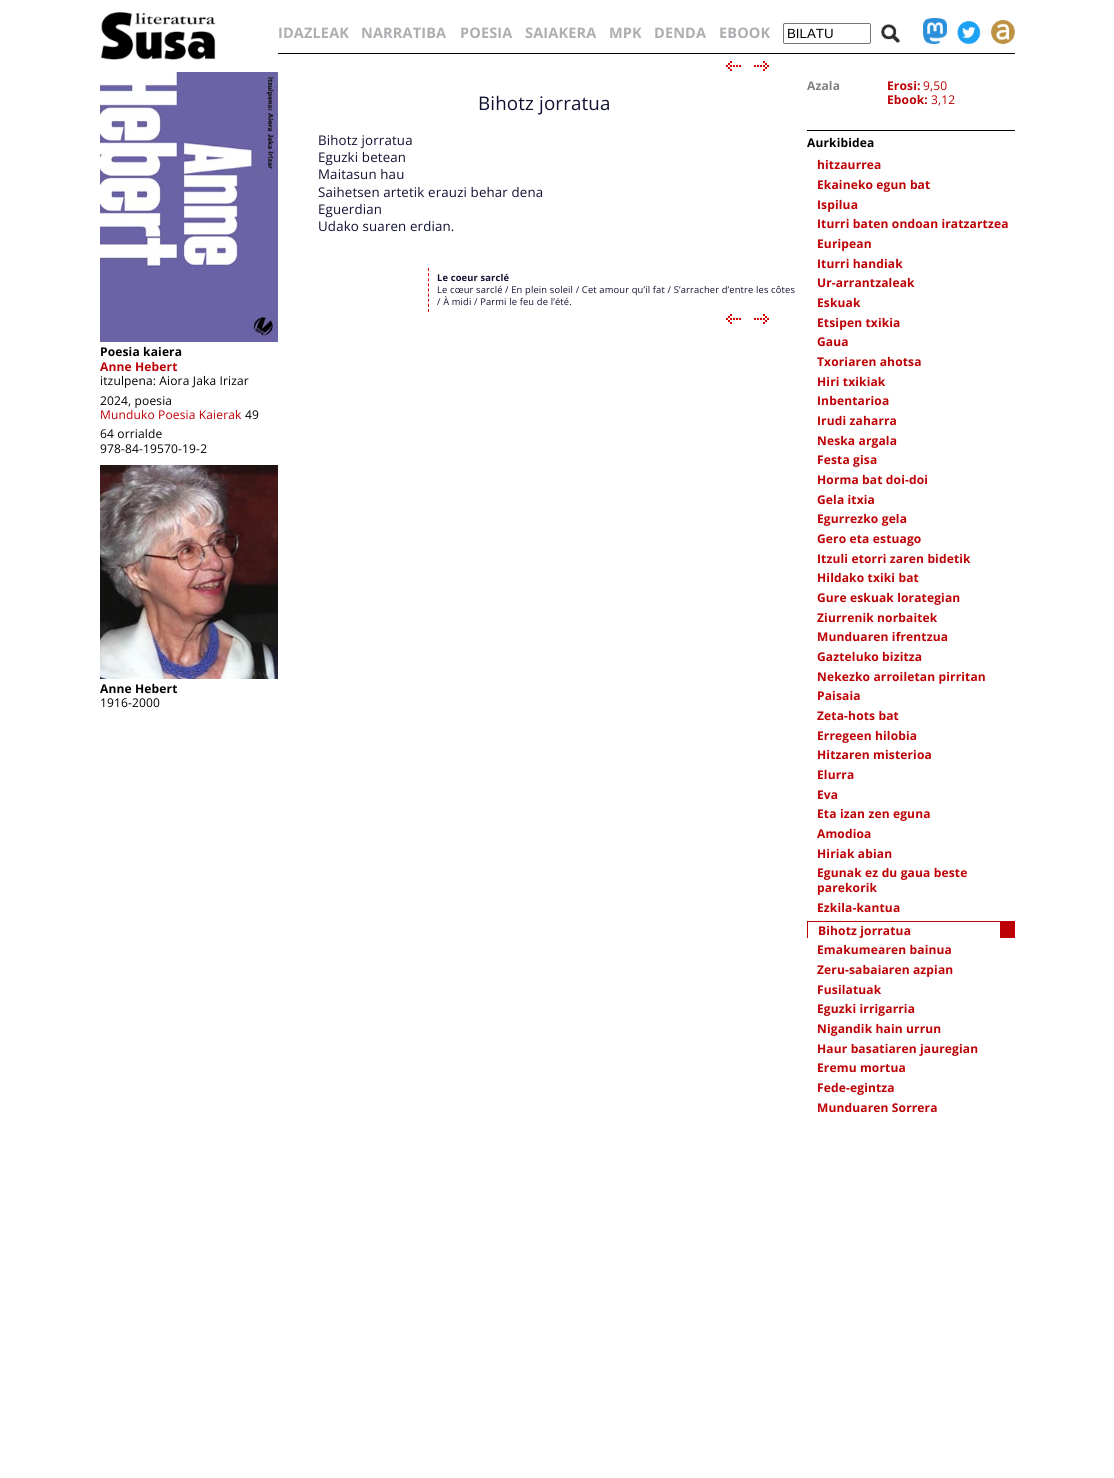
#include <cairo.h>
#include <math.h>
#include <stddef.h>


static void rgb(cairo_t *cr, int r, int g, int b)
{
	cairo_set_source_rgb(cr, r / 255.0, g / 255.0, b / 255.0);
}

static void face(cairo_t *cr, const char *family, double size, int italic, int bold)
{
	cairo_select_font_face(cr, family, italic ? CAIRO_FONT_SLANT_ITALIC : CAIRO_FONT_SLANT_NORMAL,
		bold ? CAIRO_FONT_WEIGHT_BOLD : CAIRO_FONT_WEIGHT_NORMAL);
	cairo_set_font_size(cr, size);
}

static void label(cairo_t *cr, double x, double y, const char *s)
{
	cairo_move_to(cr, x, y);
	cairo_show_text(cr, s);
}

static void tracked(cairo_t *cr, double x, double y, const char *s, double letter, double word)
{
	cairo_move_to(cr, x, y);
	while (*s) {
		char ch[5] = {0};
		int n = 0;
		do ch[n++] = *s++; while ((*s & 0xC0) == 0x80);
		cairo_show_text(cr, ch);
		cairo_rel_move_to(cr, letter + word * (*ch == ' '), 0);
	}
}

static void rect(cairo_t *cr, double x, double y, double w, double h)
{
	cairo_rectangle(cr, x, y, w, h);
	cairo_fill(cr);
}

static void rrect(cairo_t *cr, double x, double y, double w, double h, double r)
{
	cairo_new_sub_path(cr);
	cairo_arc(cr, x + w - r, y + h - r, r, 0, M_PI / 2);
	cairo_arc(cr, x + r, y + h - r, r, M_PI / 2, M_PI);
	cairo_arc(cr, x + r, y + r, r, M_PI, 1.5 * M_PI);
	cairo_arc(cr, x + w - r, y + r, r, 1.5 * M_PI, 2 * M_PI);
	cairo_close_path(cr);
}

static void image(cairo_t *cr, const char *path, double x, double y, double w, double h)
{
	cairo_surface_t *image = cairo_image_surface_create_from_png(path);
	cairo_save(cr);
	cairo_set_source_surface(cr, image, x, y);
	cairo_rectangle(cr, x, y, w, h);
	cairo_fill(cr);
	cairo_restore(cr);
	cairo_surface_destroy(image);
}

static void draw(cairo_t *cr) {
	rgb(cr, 255, 255, 255);
	cairo_paint(cr);
	image(cr, "image0.png", 100, 12, 116, 48);
	image(cr, "image1.png", 100, 72, 178, 270);
	face(cr, "Open Sans", 12, 0, 1);
	rgb(cr, 0, 0, 0);
	tracked(cr, 100, 356, "Poesia kaiera", 0.15, 0);
	rgb(cr, 188, 0, 4);
	tracked(cr, 100, 371, "Anne Hebert", 0.15, 0);
	face(cr, "Open Sans", 12, 0, 0);
	rgb(cr, 0, 0, 0);
	tracked(cr, 100, 385, "itzulpena: Aiora Jaka Irizar", 0.15, 0);
	tracked(cr, 100, 405, "2024, poesia", 0.15, 0);
	rgb(cr, 188, 0, 4);
	tracked(cr, 100, 419, "Munduko Poesia Kaierak", 0.15, 0);
	rgb(cr, 0, 0, 0);
	tracked(cr, 245, 419, "49", 0.15, 0);
	tracked(cr, 100, 438, "64 orrialde", 0.15, 0);
	tracked(cr, 100, 453, "978-84-19570-19-2", 0.15, 0);
	image(cr, "image2.png", 100, 465, 178, 214);
	face(cr, "Open Sans", 12, 0, 1);
	tracked(cr, 100, 693, "Anne Hebert", 0.15, 0);
	face(cr, "Open Sans", 12, 0, 0);
	tracked(cr, 100, 707, "1916-2000", 0.15, 0);
	rect(cr, 278, 53, 737, 1);
	face(cr, "Open Sans", 14.5, 0, 1);
	rgb(cr, 173, 174, 178);
	tracked(cr, 278, 38, "IDAZLEAK", 0.15, 0);
	tracked(cr, 361, 38, "NARRATIBA", 0.15, 0);
	tracked(cr, 460, 38, "POESIA", 0.15, 0);
	tracked(cr, 525, 38, "SAIAKERA", 0.15, 0);
	tracked(cr, 609, 38, "MPK", 0.15, 0);
	tracked(cr, 654, 38, "DENDA", 0.15, 0);
	tracked(cr, 719, 38, "EBOOK", 0.15, 0);
	rrect(cr, 783.5, 23.5, 87, 20, 1.5);
	rgb(cr, 118, 118, 118);
	cairo_set_line_width(cr, 1);
	cairo_stroke(cr);
	face(cr, "Liberation Sans", 13.3, 0, 0);
	rgb(cr, 0, 0, 0);
	label(cr, 787, 38, "BILATU");
	image(cr, "image3.png", 881, 24, 19, 19);
	image(cr, "image4.png", 923, 18, 24, 26);
	image(cr, "image5.png", 957, 21, 24, 23);
	image(cr, "image6.png", 991, 20, 24, 24);
	image(cr, "image7.png", 726, 61, 15, 10);
	image(cr, "image8.png", 754, 61, 15, 10);
	face(cr, "Open Sans", 18.75, 0, 0);
	rgb(cr, 17, 17, 51);
	tracked(cr, 478, 110, "Bihotz jorratua", 0.15, 0);
	face(cr, "Open Sans", 13.3, 0, 0);
	tracked(cr, 318, 145, "Bihotz jorratua", 0.15, 0);
	tracked(cr, 318, 162, "Eguzki betean", 0.15, 0);
	tracked(cr, 318, 179, "Maitasun hau", 0.15, 0);
	tracked(cr, 318, 197, "Saihetsen artetik erauzi behar dena", 0.15, 0);
	tracked(cr, 318, 214, "Eguerdian", 0.15, 0);
	tracked(cr, 318, 231, "Udako suaren erdian.", 0.15, 0);
	cairo_new_path(cr);
	cairo_move_to(cr, 428.5, 268);
	cairo_line_to(cr, 428.5, 312);
	rgb(cr, 215, 0, 5);
	cairo_set_dash(cr, (double[]){3, 2.12}, 2, 0);
	cairo_stroke(cr);
	face(cr, "Open Sans", 9.35, 0, 1);
	rgb(cr, 17, 17, 51);
	tracked(cr, 437, 281, "Le coeur sarclé", 0.15, 0);
	face(cr, "Open Sans", 9.35, 0, 0);
	tracked(cr, 437, 293, "Le cœur sarclé / En plein soleil / Cet amour qu’il fat / S’arracher d’entre les côtes", 0.15, 0);
	tracked(cr, 437, 305, "/ À midi / Parmi le feu de l’été.", 0.15, 0);
	image(cr, "image7.png", 726, 314, 15, 10);
	image(cr, "image8.png", 754, 314, 15, 10);
	face(cr, "Open Sans", 12, 0, 1);
	rgb(cr, 128, 127, 132);
	tracked(cr, 807, 90, "Azala", 0.15, 0);
	rgb(cr, 188, 0, 4);
	tracked(cr, 887, 90, "Erosi:", 0.15, 0);
	face(cr, "Open Sans", 12, 0, 0);
	tracked(cr, 923, 90, "9,50", 0.15, 0);
	face(cr, "Open Sans", 12, 0, 1);
	tracked(cr, 887, 104, "Ebook:", 0.15, 0);
	face(cr, "Open Sans", 12, 0, 0);
	tracked(cr, 931, 104, "3,12", 0.15, 0);
	rgb(cr, 0, 0, 0);
	rect(cr, 807, 130, 208, 1);
	face(cr, "Open Sans", 12, 0, 1);
	tracked(cr, 807, 147, "Aurkibidea", 0.15, 0);
	rgb(cr, 188, 0, 4);
	tracked(cr, 817, 169, "hitzaurrea", 0.15, 0);
	tracked(cr, 817, 189, "Ekaineko egun bat", 0.15, 0);
	tracked(cr, 817, 209, "Ispilua", 0.15, 0);
	tracked(cr, 817, 228, "Iturri baten ondoan iratzartzea", 0.15, 0);
	tracked(cr, 817, 248, "Euripean", 0.15, 0);
	tracked(cr, 817, 268, "Iturri handiak", 0.15, 0);
	tracked(cr, 817, 287, "Ur-arrantzaleak", 0.15, 0);
	tracked(cr, 817, 307, "Eskuak", 0.15, 0);
	tracked(cr, 817, 327, "Etsipen txikia", 0.15, 0);
	tracked(cr, 817, 346, "Gaua", 0.15, 0);
	tracked(cr, 817, 366, "Txoriaren ahotsa", 0.15, 0);
	tracked(cr, 817, 386, "Hiri txikiak", 0.15, 0);
	tracked(cr, 817, 405, "Inbentarioa", 0.15, 0);
	tracked(cr, 817, 425, "Irudi zaharra", 0.15, 0);
	tracked(cr, 817, 445, "Neska argala", 0.15, 0);
	tracked(cr, 817, 464, "Festa gisa", 0.15, 0);
	tracked(cr, 817, 484, "Horma bat doi-doi", 0.15, 0);
	tracked(cr, 817, 504, "Gela itxia", 0.15, 0);
	tracked(cr, 817, 523, "Egurrezko gela", 0.15, 0);
	tracked(cr, 817, 543, "Gero eta estuago", 0.15, 0);
	tracked(cr, 817, 563, "Itzuli etorri zaren bidetik", 0.15, 0);
	tracked(cr, 817, 582, "Hildako txiki bat", 0.15, 0);
	tracked(cr, 817, 602, "Gure eskuak lorategian", 0.15, 0);
	tracked(cr, 817, 622, "Ziurrenik norbaitek", 0.15, 0);
	tracked(cr, 817, 641, "Munduaren ifrentzua", 0.15, 0);
	tracked(cr, 817, 661, "Gazteluko bizitza", 0.15, 0);
	tracked(cr, 817, 681, "Nekezko arroiletan pirritan", 0.15, 0);
	tracked(cr, 817, 700, "Paisaia", 0.15, 0);
	tracked(cr, 817, 720, "Zeta-hots bat", 0.15, 0);
	tracked(cr, 817, 740, "Erregeen hilobia", 0.15, 0);
	tracked(cr, 817, 759, "Hitzaren misterioa", 0.15, 0);
	tracked(cr, 817, 779, "Elurra", 0.15, 0);
	tracked(cr, 817, 799, "Eva", 0.15, 0);
	tracked(cr, 817, 818, "Eta izan zen eguna", 0.15, 0);
	tracked(cr, 817, 838, "Amodioa", 0.15, 0);
	tracked(cr, 817, 858, "Hiriak abian", 0.15, 0);
	tracked(cr, 817, 877, "Egunak ez du gaua beste", 0.15, 0);
	tracked(cr, 817, 892, "parekorik", 0.15, 0);
	tracked(cr, 817, 912, "Ezkila-kantua", 0.15, 0);
	rgb(cr, 188, 0, 5);
	rect(cr, 1000, 922, 15, 16);
	rect(cr, 807, 921, 208, 1);
	rect(cr, 807, 921, 1, 17);
	rgb(cr, 188, 0, 4);
	tracked(cr, 818, 935, "Bihotz jorratua", 0.15, 0);
	tracked(cr, 817, 954, "Emakumearen bainua", 0.15, 0);
	tracked(cr, 817, 974, "Zeru-sabaiaren azpian", 0.15, 0);
	tracked(cr, 817, 994, "Fusilatuak", 0.15, 0);
	tracked(cr, 817, 1013, "Eguzki irrigarria", 0.15, 0);
	tracked(cr, 817, 1033, "Nigandik hain urrun", 0.15, 0);
	tracked(cr, 817, 1053, "Haur basatiaren jauregian", 0.15, 0);
	tracked(cr, 817, 1072, "Eremu mortua", 0.15, 0);
	tracked(cr, 817, 1092, "Fede-egintza", 0.15, 0);
	tracked(cr, 817, 1112, "Munduaren Sorrera", 0.15, 0);
}

int main(void) {
	cairo_surface_t *surface = cairo_image_surface_create(CAIRO_FORMAT_RGB24, 1114, 1478);
	cairo_t *cr = cairo_create(surface);
	cairo_font_options_t *options = cairo_font_options_create();
	cairo_font_options_set_hint_metrics(options, CAIRO_HINT_METRICS_OFF);
	cairo_font_options_set_hint_style(options, CAIRO_HINT_STYLE_NONE);
	cairo_set_font_options(cr, options);
	cairo_set_miter_limit(cr, 4);
	draw(cr);
	cairo_surface_write_to_png(surface, "render.png");
	cairo_font_options_destroy(options);
	cairo_destroy(cr);
	cairo_surface_destroy(surface);
	return 0;
}
